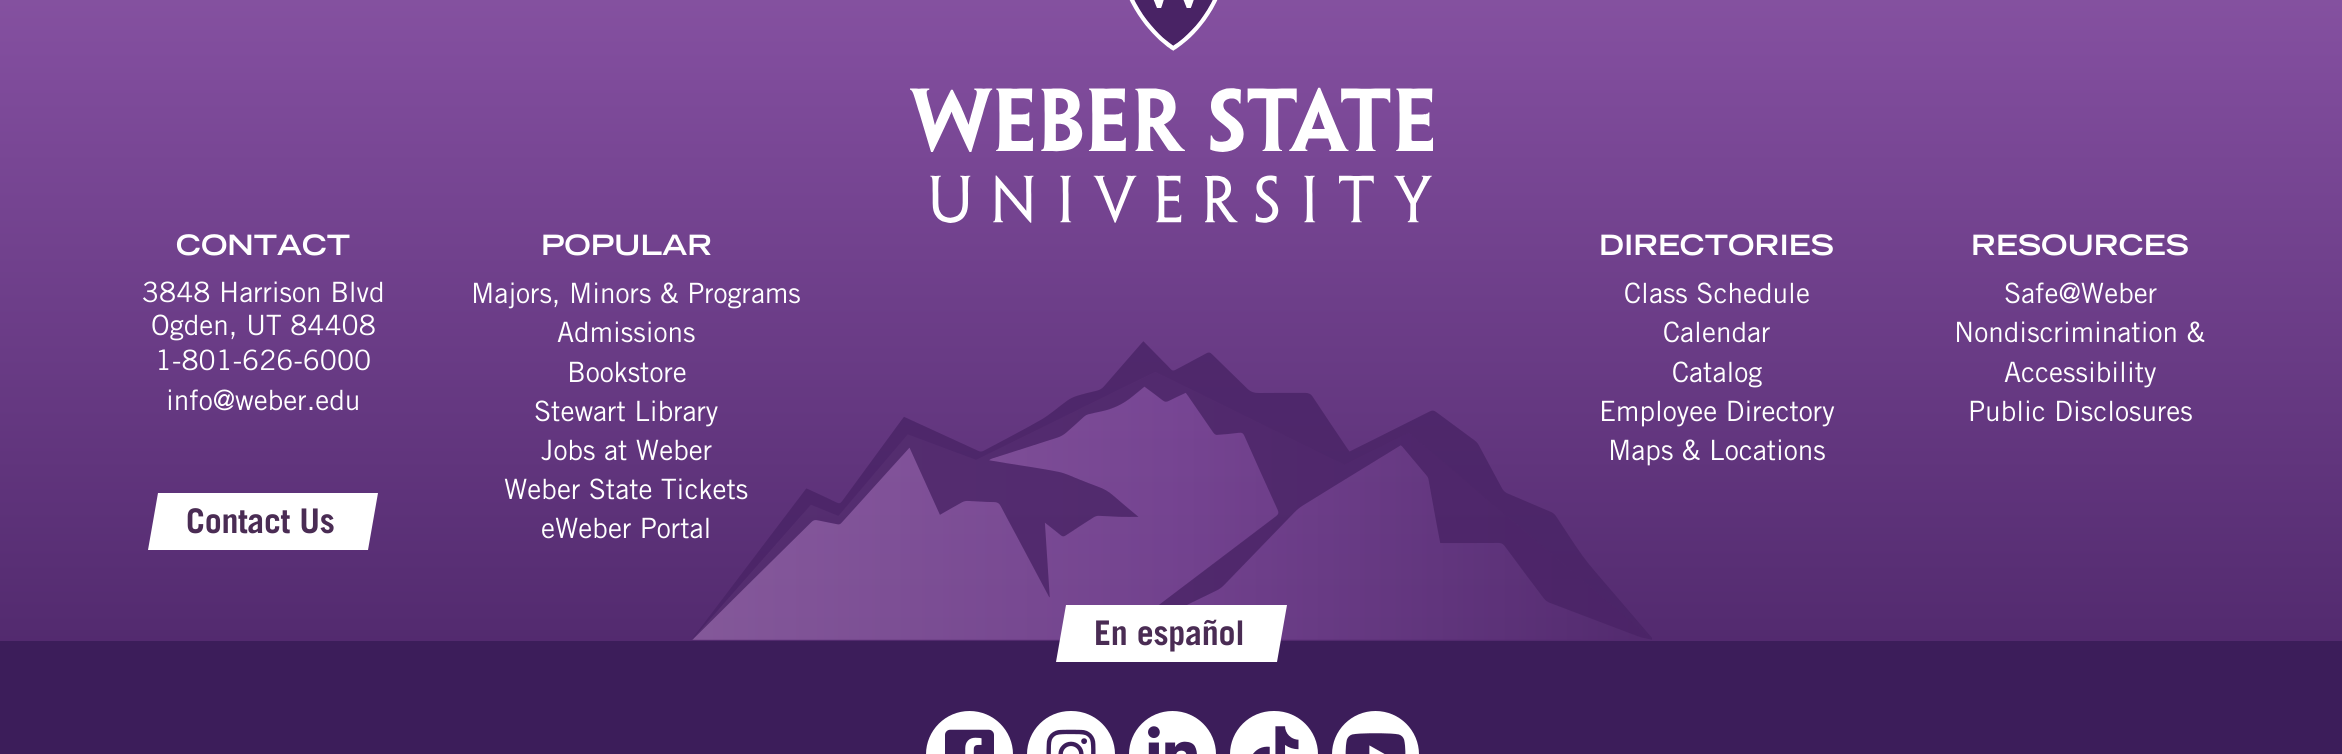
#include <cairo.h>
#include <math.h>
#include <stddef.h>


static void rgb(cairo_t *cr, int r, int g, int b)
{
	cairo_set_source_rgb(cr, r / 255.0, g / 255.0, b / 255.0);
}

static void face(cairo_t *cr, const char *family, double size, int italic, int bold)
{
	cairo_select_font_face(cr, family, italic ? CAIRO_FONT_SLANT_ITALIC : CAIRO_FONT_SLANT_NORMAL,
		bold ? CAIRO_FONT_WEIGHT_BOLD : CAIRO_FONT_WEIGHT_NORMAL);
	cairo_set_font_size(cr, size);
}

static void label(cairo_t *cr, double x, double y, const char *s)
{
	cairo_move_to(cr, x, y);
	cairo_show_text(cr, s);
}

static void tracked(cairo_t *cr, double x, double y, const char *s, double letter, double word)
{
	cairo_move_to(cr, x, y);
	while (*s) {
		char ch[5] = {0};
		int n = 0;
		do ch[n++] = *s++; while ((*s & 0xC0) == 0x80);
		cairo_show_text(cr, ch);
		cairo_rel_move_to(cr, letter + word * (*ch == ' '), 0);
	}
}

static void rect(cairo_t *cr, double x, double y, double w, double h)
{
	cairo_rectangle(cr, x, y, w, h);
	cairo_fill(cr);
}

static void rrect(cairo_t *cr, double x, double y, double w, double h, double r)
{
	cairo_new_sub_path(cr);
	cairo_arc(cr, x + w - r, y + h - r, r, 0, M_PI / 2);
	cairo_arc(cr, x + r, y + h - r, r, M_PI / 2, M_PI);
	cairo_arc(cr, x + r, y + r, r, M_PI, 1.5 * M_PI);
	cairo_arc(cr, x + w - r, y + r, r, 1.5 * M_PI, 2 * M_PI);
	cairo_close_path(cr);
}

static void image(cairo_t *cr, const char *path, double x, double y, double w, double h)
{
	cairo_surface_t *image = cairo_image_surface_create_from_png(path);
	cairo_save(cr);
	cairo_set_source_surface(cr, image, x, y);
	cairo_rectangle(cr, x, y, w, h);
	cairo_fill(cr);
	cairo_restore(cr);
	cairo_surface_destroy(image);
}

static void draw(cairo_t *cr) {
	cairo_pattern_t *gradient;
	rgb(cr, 255, 255, 255);
	cairo_paint(cr);
	gradient = cairo_pattern_create_linear(1172, -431, 1172, 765);
	cairo_pattern_add_color_stop_rgba(gradient, 0, 0.635, 0.459, 0.702, 1);
	cairo_pattern_add_color_stop_rgba(gradient, 0.4, 0.506, 0.302, 0.616, 1);
	cairo_pattern_add_color_stop_rgba(gradient, 1, 0.286, 0.137, 0.396, 1);
	cairo_set_source(cr, gradient);
	cairo_pattern_destroy(gradient);
	cairo_new_path(cr);
	cairo_move_to(cr, 1184, -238);
	cairo_curve_to(cr, 714, -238, 290, -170, 0, -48);
	cairo_line_to(cr, 0, 647);
	cairo_line_to(cr, 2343, 647);
	cairo_line_to(cr, 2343, -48);
	cairo_curve_to(cr, 2052, -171, 1650, -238, 1184, -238);
	cairo_close_path(cr);
	cairo_fill(cr);
	image(cr, "image0.png", 910, 0, 523, 223);
	face(cr, "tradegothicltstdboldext", 28, 0, 1);
	rgb(cr, 255, 255, 255);
	label(cr, 176, 255, "CONTACT");
	face(cr, "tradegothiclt", 28, 0, 0);
	label(cr, 142, 302, "3848 Harrison Blvd");
	label(cr, 151, 335, "Ogden, UT 84408");
	label(cr, 155, 370, "1-801-626-6000");
	label(cr, 166, 410, "info@weber.edu");
	cairo_new_path(cr);
	cairo_move_to(cr, 158, 493);
	cairo_line_to(cr, 378, 493);
	cairo_line_to(cr, 368, 550);
	cairo_line_to(cr, 148, 550);
	cairo_close_path(cr);
	cairo_fill(cr);
	face(cr, "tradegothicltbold", 34, 0, 1);
	rgb(cr, 74, 44, 84);
	tracked(cr, 186, 533, "Contact Us", -0.25, 0);
	face(cr, "tradegothicltstdboldext", 28, 0, 1);
	rgb(cr, 255, 255, 255);
	label(cr, 541, 255, "POPULAR");
	face(cr, "tradegothiclt", 28, 0, 0);
	label(cr, 471, 303, "Majors, Minors & Programs");
	image(cr, "image1.png", 692, 341, 960, 299);
	label(cr, 557, 342, "Admissions");
	label(cr, 567, 382, "Bookstore");
	label(cr, 534, 421, "Stewart Library");
	label(cr, 541, 460, "Jobs at Weber");
	label(cr, 504, 499, "Weber State Tickets");
	label(cr, 541, 538, "eWeber Portal");
	face(cr, "tradegothicltstdboldext", 28, 0, 1);
	label(cr, 1599, 255, "DIRECTORIES");
	face(cr, "tradegothiclt", 28, 0, 0);
	label(cr, 1624, 303, "Class Schedule");
	label(cr, 1663, 342, "Calendar");
	label(cr, 1672, 382, "Catalog");
	label(cr, 1599, 421, "Employee Directory");
	label(cr, 1608, 460, "Maps & Locations");
	face(cr, "tradegothicltstdboldext", 28, 0, 1);
	label(cr, 1971, 255, "RESOURCES");
	face(cr, "tradegothiclt", 28, 0, 0);
	label(cr, 2004, 303, "Safe@Weber");
	label(cr, 1954, 342, "Nondiscrimination &");
	label(cr, 2004, 382, "Accessibility");
	label(cr, 1968, 421, "Public Disclosures");
	rgb(cr, 60, 29, 90);
	rect(cr, 0, 641, 2342, 113);
	rgb(cr, 255, 255, 255);
	cairo_new_path(cr);
	cairo_move_to(cr, 1066, 605);
	cairo_line_to(cr, 1287, 605);
	cairo_line_to(cr, 1277, 662);
	cairo_line_to(cr, 1056, 662);
	cairo_close_path(cr);
	cairo_fill(cr);
	face(cr, "tradegothicltbold", 34, 0, 1);
	rgb(cr, 74, 44, 84);
	tracked(cr, 1094, 645, "En español", -0.25, 0);
	rgb(cr, 255, 255, 255);
	cairo_new_path(cr);
	cairo_arc(cr, 969.5, 754.5, 43.5, 0, 2 * M_PI);
	cairo_fill(cr);
	image(cr, "image2.png", 945, 729, 49, 25);
	rrect(cr, 1027, 711, 88, 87, 43.5);
	cairo_fill(cr);
	image(cr, "image3.png", 1046, 729, 50, 25);
	cairo_arc(cr, 1172.5, 754.5, 43.5, 0, 2 * M_PI);
	cairo_fill(cr);
	image(cr, "image4.png", 1148, 726, 49, 28);
	rrect(cr, 1230, 711, 88, 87, 43.5);
	cairo_fill(cr);
	image(cr, "image5.png", 1253, 726, 46, 28);
	cairo_arc(cr, 1375.5, 754.5, 43.5, 0, 2 * M_PI);
	cairo_fill(cr);
	image(cr, "image6.png", 1345, 733, 61, 21);
}

int main(void) {
	cairo_surface_t *surface = cairo_image_surface_create(CAIRO_FORMAT_RGB24, 2342, 754);
	cairo_t *cr = cairo_create(surface);
	cairo_font_options_t *options = cairo_font_options_create();
	cairo_font_options_set_hint_metrics(options, CAIRO_HINT_METRICS_OFF);
	cairo_font_options_set_hint_style(options, CAIRO_HINT_STYLE_NONE);
	cairo_set_font_options(cr, options);
	cairo_set_miter_limit(cr, 4);
	draw(cr);
	cairo_surface_write_to_png(surface, "render.png");
	cairo_font_options_destroy(options);
	cairo_destroy(cr);
	cairo_surface_destroy(surface);
	return 0;
}
